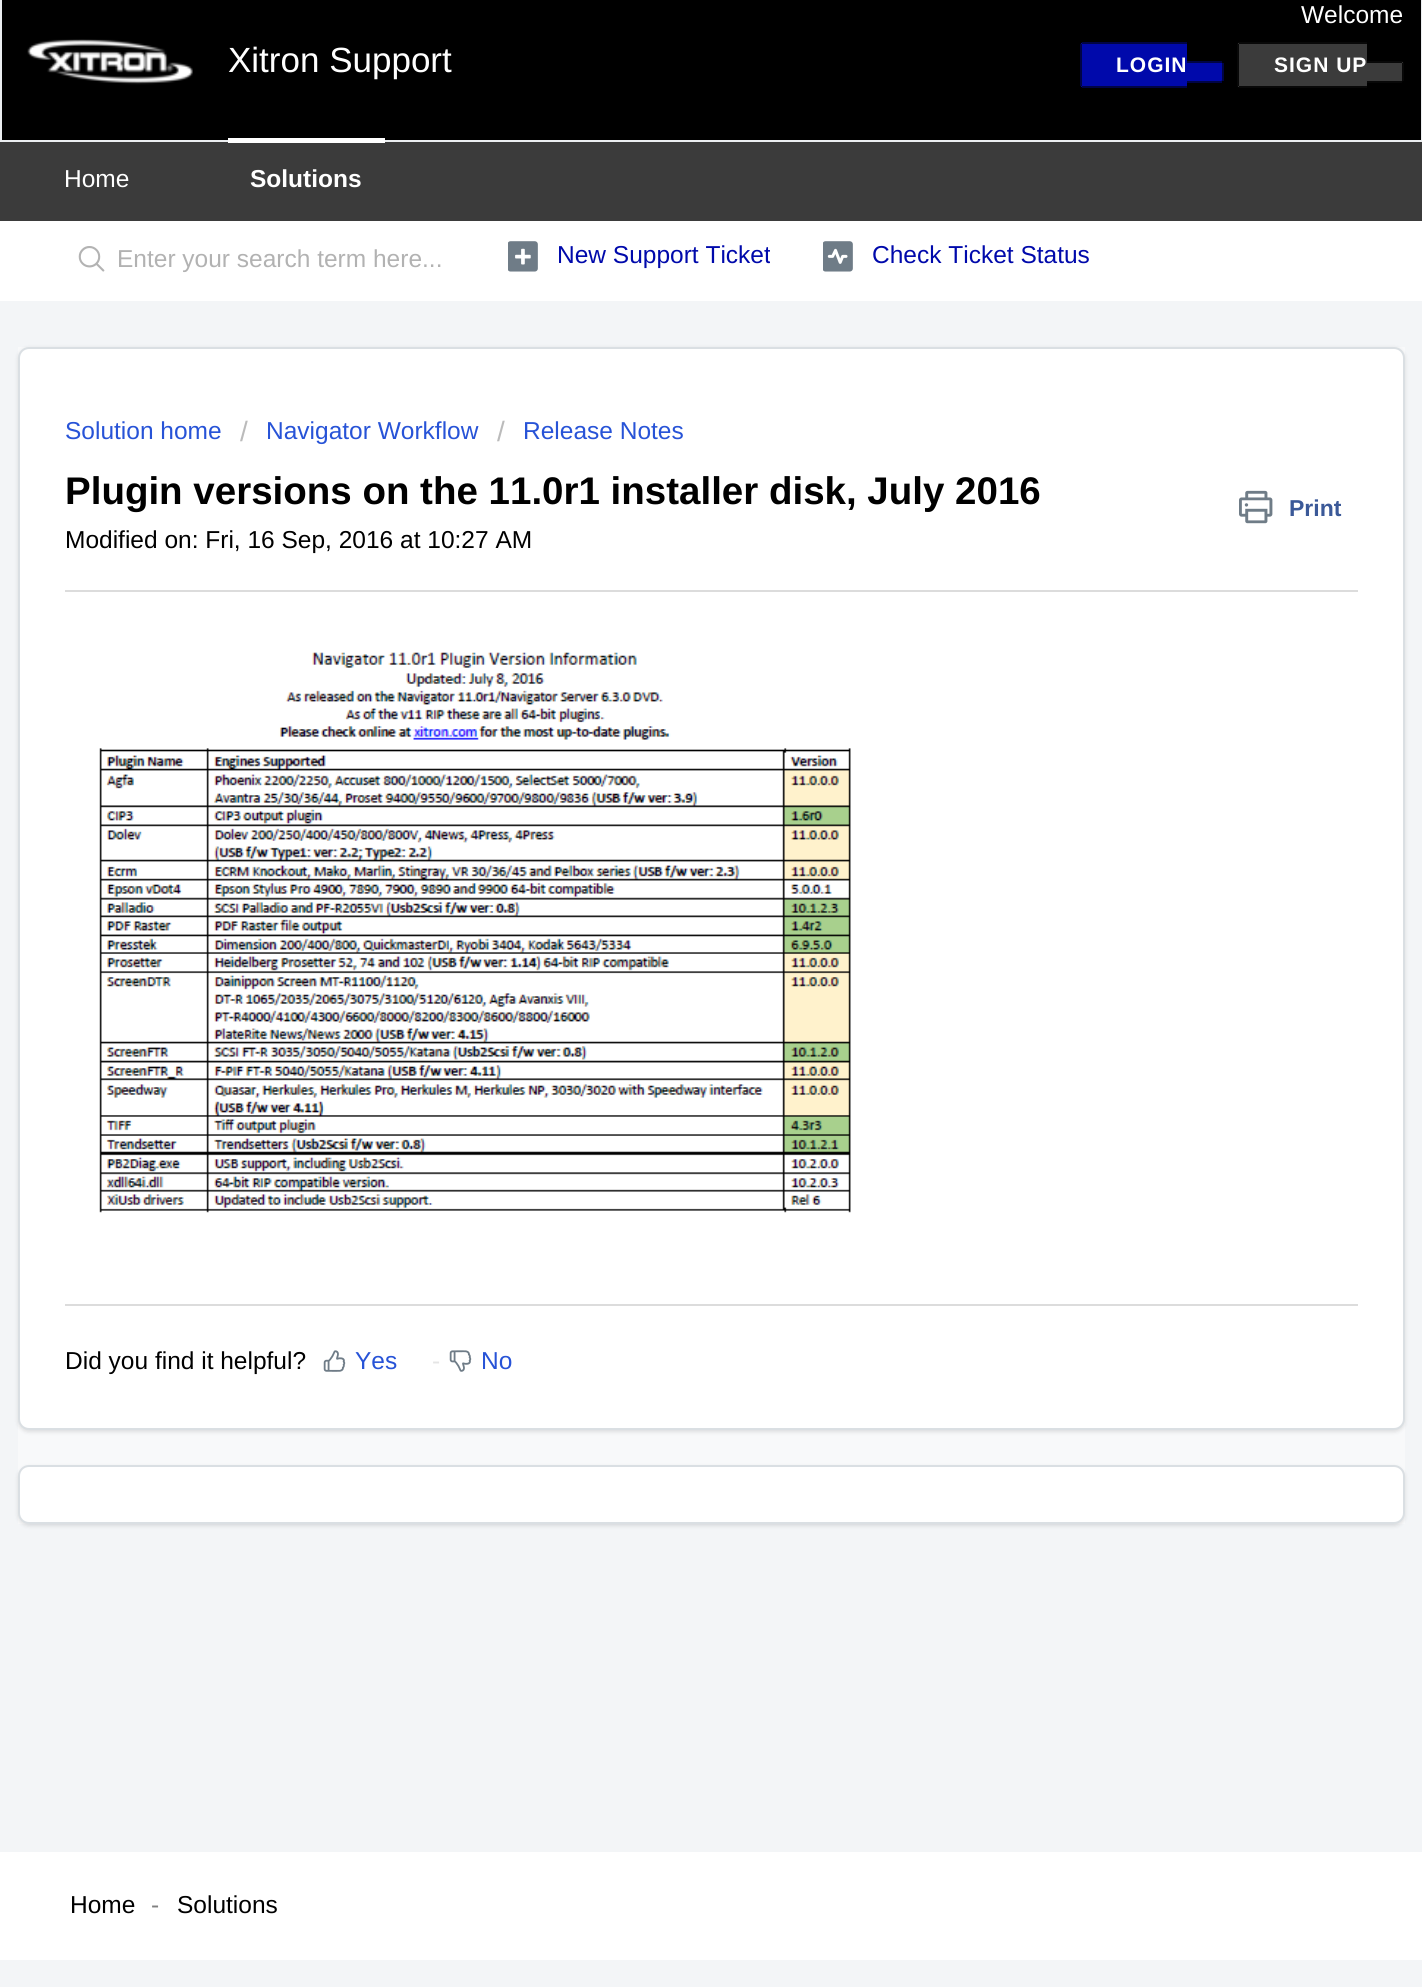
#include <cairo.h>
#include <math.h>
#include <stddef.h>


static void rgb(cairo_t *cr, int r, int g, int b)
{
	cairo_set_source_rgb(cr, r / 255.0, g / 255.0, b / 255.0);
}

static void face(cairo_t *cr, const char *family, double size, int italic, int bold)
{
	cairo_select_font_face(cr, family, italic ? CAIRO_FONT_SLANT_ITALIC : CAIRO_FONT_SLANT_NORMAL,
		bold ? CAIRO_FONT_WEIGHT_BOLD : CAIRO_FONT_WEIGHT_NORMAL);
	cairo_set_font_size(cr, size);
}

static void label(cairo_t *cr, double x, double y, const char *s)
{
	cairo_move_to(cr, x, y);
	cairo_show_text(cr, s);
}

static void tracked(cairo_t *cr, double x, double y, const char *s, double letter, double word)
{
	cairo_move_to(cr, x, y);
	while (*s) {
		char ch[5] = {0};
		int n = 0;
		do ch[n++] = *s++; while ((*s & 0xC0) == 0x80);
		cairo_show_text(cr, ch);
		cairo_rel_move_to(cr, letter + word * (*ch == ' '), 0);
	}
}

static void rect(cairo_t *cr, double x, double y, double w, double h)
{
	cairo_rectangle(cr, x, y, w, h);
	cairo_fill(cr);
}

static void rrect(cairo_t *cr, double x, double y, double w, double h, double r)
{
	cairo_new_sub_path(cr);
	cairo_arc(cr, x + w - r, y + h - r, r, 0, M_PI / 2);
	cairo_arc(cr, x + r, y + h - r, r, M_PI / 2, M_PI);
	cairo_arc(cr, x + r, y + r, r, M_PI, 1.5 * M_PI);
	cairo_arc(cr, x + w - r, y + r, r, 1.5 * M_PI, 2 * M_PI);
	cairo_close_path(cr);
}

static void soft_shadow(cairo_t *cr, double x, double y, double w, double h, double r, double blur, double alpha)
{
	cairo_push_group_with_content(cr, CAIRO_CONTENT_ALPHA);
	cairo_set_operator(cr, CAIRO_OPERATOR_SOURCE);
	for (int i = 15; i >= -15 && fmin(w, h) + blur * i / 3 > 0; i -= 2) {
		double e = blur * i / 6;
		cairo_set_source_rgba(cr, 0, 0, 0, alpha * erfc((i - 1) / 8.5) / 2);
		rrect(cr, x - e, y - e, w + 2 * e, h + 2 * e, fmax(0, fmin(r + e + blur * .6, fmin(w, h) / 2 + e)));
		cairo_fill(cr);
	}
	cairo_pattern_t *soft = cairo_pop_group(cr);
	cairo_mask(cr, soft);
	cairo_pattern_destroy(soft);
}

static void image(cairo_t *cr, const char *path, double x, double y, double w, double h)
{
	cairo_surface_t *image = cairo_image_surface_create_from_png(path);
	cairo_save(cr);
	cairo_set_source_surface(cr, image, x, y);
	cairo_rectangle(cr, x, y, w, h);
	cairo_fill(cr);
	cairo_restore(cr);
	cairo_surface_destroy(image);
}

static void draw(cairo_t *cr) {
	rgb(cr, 243, 245, 247);
	cairo_paint(cr);
	rgb(cr, 0, 0, 0);
	cairo_rectangle(cr, 1, -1, 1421, 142);
	cairo_fill_preserve(cr);
	rgb(cr, 235, 238, 240);
	cairo_stroke(cr);
	image(cr, "image0.png", 27, 39, 166, 46);
	face(cr, "Liberation Sans", 35, 0, 0);
	rgb(cr, 255, 255, 255);
	label(cr, 228, 72, "Xitron Support");
	face(cr, "Liberation Sans", 24.5, 0, 0);
	label(cr, 1301, 23, "Welcome");
	rgb(cr, 0, 9, 171);
	cairo_new_path(cr);
	cairo_move_to(cr, 1084, 42);
	cairo_line_to(cr, 1187, 42);
	cairo_line_to(cr, 1187, 88);
	cairo_line_to(cr, 1084, 88);
	cairo_curve_to(cr, 1082, 88, 1080, 86, 1080, 84);
	cairo_line_to(cr, 1080, 46);
	cairo_curve_to(cr, 1080, 44, 1082, 42, 1084, 42);
	cairo_close_path(cr);
	cairo_fill(cr);
	face(cr, "Liberation Sans", 21, 0, 1);
	rgb(cr, 255, 255, 255);
	tracked(cr, 1116, 72, "LOGIN", 1, 0);
	rgb(cr, 0, 4, 69);
	rect(cr, 1082, 42, 105, 2);
	rect(cr, 1082, 86, 105, 2);
	rect(cr, 1080, 44, 2, 42);
	rgb(cr, 0, 9, 171);
	cairo_new_path(cr);
	cairo_move_to(cr, 1187, 61);
	cairo_line_to(cr, 1219, 61);
	cairo_curve_to(cr, 1221, 61, 1223, 63, 1223, 65);
	cairo_line_to(cr, 1223, 78);
	cairo_curve_to(cr, 1223, 80, 1221, 82, 1219, 82);
	cairo_line_to(cr, 1187, 82);
	cairo_close_path(cr);
	cairo_fill(cr);
	rgb(cr, 0, 4, 69);
	rect(cr, 1187, 61, 35, 2);
	rect(cr, 1222, 63, 2, 18);
	rect(cr, 1187, 81, 35, 2);
	rgb(cr, 59, 59, 59);
	cairo_new_path(cr);
	cairo_move_to(cr, 1241, 42);
	cairo_line_to(cr, 1367, 42);
	cairo_line_to(cr, 1367, 88);
	cairo_line_to(cr, 1241, 88);
	cairo_curve_to(cr, 1239, 88, 1237, 86, 1237, 84);
	cairo_line_to(cr, 1237, 46);
	cairo_curve_to(cr, 1237, 44, 1239, 42, 1241, 42);
	cairo_close_path(cr);
	cairo_fill(cr);
	rgb(cr, 255, 255, 255);
	tracked(cr, 1274, 72, "SIGN UP", 1, 0);
	rgb(cr, 8, 8, 8);
	rect(cr, 1239, 42, 128, 2);
	rect(cr, 1239, 86, 128, 2);
	rect(cr, 1237, 44, 2, 42);
	rgb(cr, 59, 59, 59);
	cairo_new_path(cr);
	cairo_move_to(cr, 1367, 61);
	cairo_line_to(cr, 1400, 61);
	cairo_curve_to(cr, 1402, 61, 1404, 63, 1404, 65);
	cairo_line_to(cr, 1404, 78);
	cairo_curve_to(cr, 1404, 80, 1402, 82, 1400, 82);
	cairo_line_to(cr, 1367, 82);
	cairo_close_path(cr);
	cairo_fill(cr);
	rgb(cr, 8, 8, 8);
	rect(cr, 1367, 61, 35, 2);
	rect(cr, 1402, 63, 2, 18);
	rect(cr, 1367, 81, 35, 2);
	rgb(cr, 59, 59, 59);
	rect(cr, 0, 142, 1422, 79);
	face(cr, "Liberation Sans", 24.5, 0, 0);
	rgb(cr, 255, 255, 255);
	label(cr, 64, 187, "Home");
	rect(cr, 228, 138, 157, 5);
	face(cr, "Liberation Sans", 24.5, 0, 1);
	label(cr, 250, 187, "Solutions");
	rect(cr, 0, 221, 1422, 80);
	image(cr, "image1.png", 78, 246, 27, 26);
	face(cr, "Liberation Sans", 24.5, 0, 0);
	rgb(cr, 178, 178, 178);
	label(cr, 117, 267, "Enter your search term here...");
	image(cr, "image2.png", 508, 241, 30, 31);
	cairo_save(cr);
	cairo_rectangle(cr, 508, 226, 262, 59);
	cairo_clip(cr);
	rgb(cr, 0, 9, 171);
	label(cr, 557, 263, "New Support Ticket");
	cairo_restore(cr);
	image(cr, "image3.png", 823, 241, 30, 31);
	rgb(cr, 0, 9, 171);
	label(cr, 872, 263, "Check Ticket Status");
	rgb(cr, 248, 249, 250);
	rect(cr, 18, 347, 1387, 1177);
	rgb(cr, 63, 63, 68);
	soft_shadow(cr, 18, 348, 1387, 1084, 11, 2, 0.15);
	rgb(cr, 255, 255, 255);
	rrect(cr, 19, 348, 1385, 1081, 10);
	cairo_fill_preserve(cr);
	rgb(cr, 218, 223, 227);
	cairo_stroke(cr);
	rgb(cr, 39, 83, 215);
	label(cr, 65, 439, "Solution home");
	face(cr, "Liberation Sans", 28, 0, 0);
	rgb(cr, 187, 187, 187);
	label(cr, 240, 441, "/");
	face(cr, "Liberation Sans", 24.5, 0, 0);
	rgb(cr, 39, 83, 215);
	label(cr, 266, 439, "Navigator Workflow");
	face(cr, "Liberation Sans", 28, 0, 0);
	rgb(cr, 187, 187, 187);
	label(cr, 497, 441, "/");
	face(cr, "Liberation Sans", 24.5, 0, 0);
	rgb(cr, 39, 83, 215);
	label(cr, 523, 439, "Release Notes");
	face(cr, "Liberation Sans", 38.5, 0, 1);
	rgb(cr, 0, 0, 0);
	label(cr, 65, 504, "Plugin versions on the 11.0r1 installer disk, July 2016");
	image(cr, "image4.png", 1239, 490, 34, 34);
	face(cr, "Liberation Sans", 23, 0, 1);
	rgb(cr, 59, 89, 152);
	label(cr, 1289, 516, "Print");
	face(cr, "Liberation Sans", 24.5, 0, 0);
	rgb(cr, 0, 0, 0);
	label(cr, 65, 548, "Modified on: Fri, 16 Sep, 2016 at 10:27 AM");
	rgb(cr, 220, 220, 220);
	rect(cr, 65, 590, 1293, 2);
	image(cr, "image5.png", 99, 652, 752, 561);
	rect(cr, 65, 1304, 1293, 2);
	rgb(cr, 0, 0, 0);
	label(cr, 65, 1369, "Did you find it helpful?");
	image(cr, "image6.png", 323, 1350, 23, 22);
	rgb(cr, 39, 83, 215);
	label(cr, 355, 1369, "Yes");
	rgb(cr, 229, 229, 229);
	label(cr, 432, 1369, "-");
	image(cr, "image7.png", 449, 1350, 23, 22);
	rgb(cr, 39, 83, 215);
	label(cr, 481, 1369, "No");
	rgb(cr, 63, 63, 68);
	soft_shadow(cr, 18, 1467, 1387, 59, 11, 2, 0.15);
	rgb(cr, 255, 255, 255);
	rrect(cr, 19, 1466, 1385, 57, 10);
	cairo_fill_preserve(cr);
	rgb(cr, 218, 223, 227);
	cairo_stroke(cr);
	rgb(cr, 255, 255, 255);
	rect(cr, 0, 1852, 1422, 108);
	rgb(cr, 0, 0, 0);
	label(cr, 70, 1913, "Home");
	rgb(cr, 128, 128, 128);
	label(cr, 151, 1913, "-");
	rgb(cr, 0, 0, 0);
	label(cr, 177, 1913, "Solutions");
}

int main(void) {
	cairo_surface_t *surface = cairo_image_surface_create(CAIRO_FORMAT_RGB24, 1422, 1987);
	cairo_t *cr = cairo_create(surface);
	cairo_font_options_t *options = cairo_font_options_create();
	cairo_font_options_set_hint_metrics(options, CAIRO_HINT_METRICS_OFF);
	cairo_font_options_set_hint_style(options, CAIRO_HINT_STYLE_NONE);
	cairo_set_font_options(cr, options);
	cairo_set_miter_limit(cr, 4);
	draw(cr);
	cairo_surface_write_to_png(surface, "render.png");
	cairo_font_options_destroy(options);
	cairo_destroy(cr);
	cairo_surface_destroy(surface);
	return 0;
}
